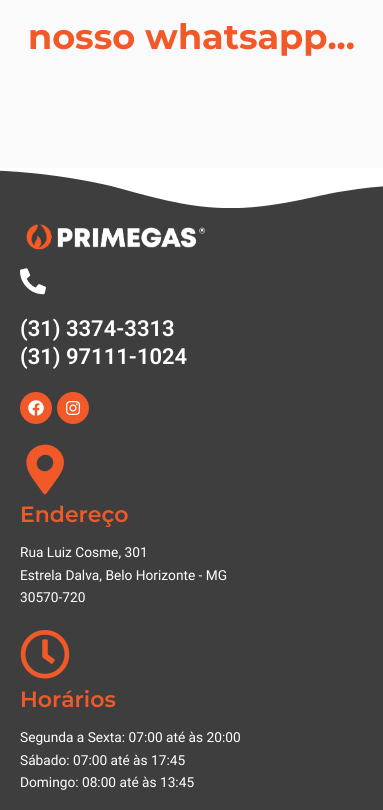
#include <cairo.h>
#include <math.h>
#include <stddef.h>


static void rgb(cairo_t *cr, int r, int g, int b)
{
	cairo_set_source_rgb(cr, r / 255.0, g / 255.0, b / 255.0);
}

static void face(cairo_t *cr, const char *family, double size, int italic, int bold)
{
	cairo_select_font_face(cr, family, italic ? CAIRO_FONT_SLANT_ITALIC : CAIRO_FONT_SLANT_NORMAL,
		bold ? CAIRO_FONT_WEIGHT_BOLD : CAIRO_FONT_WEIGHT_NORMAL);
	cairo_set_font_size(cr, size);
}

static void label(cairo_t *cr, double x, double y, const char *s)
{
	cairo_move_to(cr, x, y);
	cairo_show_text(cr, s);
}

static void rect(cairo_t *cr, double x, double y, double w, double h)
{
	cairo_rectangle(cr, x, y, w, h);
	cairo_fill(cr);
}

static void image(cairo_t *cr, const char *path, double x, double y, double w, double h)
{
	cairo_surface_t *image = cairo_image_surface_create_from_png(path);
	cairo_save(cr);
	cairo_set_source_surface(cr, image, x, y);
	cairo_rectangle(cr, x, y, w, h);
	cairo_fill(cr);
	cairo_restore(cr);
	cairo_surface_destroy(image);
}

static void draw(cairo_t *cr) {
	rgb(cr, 250, 250, 250);
	cairo_paint(cr);
	face(cr, "Montserrat", 35, 0, 1);
	rgb(cr, 241, 89, 41);
	label(cr, 28, 49, "nosso whatsapp...");
	rgb(cr, 62, 62, 63);
	rect(cr, 0, 170, 383, 640);
	cairo_save(cr);
	cairo_rectangle(cr, 0, 167, 383, 41);
	cairo_clip(cr);
	rgb(cr, 255, 255, 255);
	cairo_new_path(cr);
	cairo_move_to(cr, 5, 171);
	cairo_curve_to(cr, 41, 173, 76, 178, 111, 186);
	cairo_curve_to(cr, 148, 196, 184, 207, 223, 208);
	cairo_curve_to(cr, 249, 209, 275, 205, 300, 200);
	cairo_curve_to(cr, 315, 197, 330, 193, 345, 191);
	cairo_curve_to(cr, 379, 185, 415, 184, 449, 187);
	cairo_curve_to(cr, 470, 189, 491, 192, 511, 198);
	cairo_line_to(cr, 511, 168);
	cairo_line_to(cr, -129, 168);
	cairo_line_to(cr, -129, 182);
	cairo_curve_to(cr, -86, 171, -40, 168, 5, 171);
	cairo_close_path(cr);
	cairo_fill(cr);
	cairo_restore(cr);
	image(cr, "image0.png", 26, 224, 180, 26);
	image(cr, "image1.png", 20, 268, 26, 27);
	face(cr, "Roboto SemiBold", 22, 0, 0);
	rgb(cr, 255, 255, 255);
	label(cr, 20, 336, "(31) 3374-3313");
	label(cr, 20, 364, "(31) 97111-1024");
	rgb(cr, 241, 89, 41);
	cairo_new_path(cr);
	cairo_arc(cr, 36, 408, 16, 0, 2 * M_PI);
	cairo_fill(cr);
	image(cr, "image2.png", 28, 400, 16, 16);
	cairo_arc(cr, 73, 408, 16, 0, 2 * M_PI);
	cairo_fill(cr);
	image(cr, "image3.png", 66, 401, 15, 14);
	cairo_new_path(cr);
	cairo_move_to(cr, 43, 493);
	cairo_curve_to(cr, 39, 487, 28, 474, 27, 467);
	cairo_curve_to(cr, 22, 447, 49, 436, 61, 453);
	cairo_curve_to(cr, 69, 465, 59, 476, 52, 486);
	cairo_line_to(cr, 46, 494);
	cairo_curve_to(cr, 45, 495, 44, 494, 43, 493);
	cairo_close_path(cr);
	cairo_move_to(cr, 39, 469);
	cairo_curve_to(cr, 47, 476, 58, 465, 51, 457);
	cairo_curve_to(cr, 43, 450, 32, 461, 39, 469);
	cairo_close_path(cr);
	cairo_fill(cr);
	face(cr, "Montserrat SemiBold", 22, 0, 0);
	label(cr, 20, 522, "Endereço");
	face(cr, "Roboto", 13.7, 0, 0);
	rgb(cr, 255, 255, 255);
	label(cr, 20, 557, "Rua Luiz Cosme, 301");
	label(cr, 20, 580, "Estrela Dalva, Belo Horizonte - MG");
	label(cr, 20, 602, "30570-720");
	image(cr, "image4.png", 20, 630, 50, 49);
	face(cr, "Montserrat SemiBold", 22, 0, 0);
	rgb(cr, 241, 89, 41);
	label(cr, 20, 707, "Horários");
	face(cr, "Roboto", 13.7, 0, 0);
	rgb(cr, 255, 255, 255);
	label(cr, 20, 742, "Segunda a Sexta: 07:00 até às 20:00");
	label(cr, 20, 765, "Sábado: 07:00 até às 17:45");
	label(cr, 20, 787, "Domingo: 08:00 até às 13:45");
}

int main(void) {
	cairo_surface_t *surface = cairo_image_surface_create(CAIRO_FORMAT_RGB24, 383, 810);
	cairo_t *cr = cairo_create(surface);
	cairo_font_options_t *options = cairo_font_options_create();
	cairo_font_options_set_hint_metrics(options, CAIRO_HINT_METRICS_OFF);
	cairo_font_options_set_hint_style(options, CAIRO_HINT_STYLE_NONE);
	cairo_set_font_options(cr, options);
	cairo_set_miter_limit(cr, 4);
	draw(cr);
	cairo_surface_write_to_png(surface, "render.png");
	cairo_font_options_destroy(options);
	cairo_destroy(cr);
	cairo_surface_destroy(surface);
	return 0;
}
